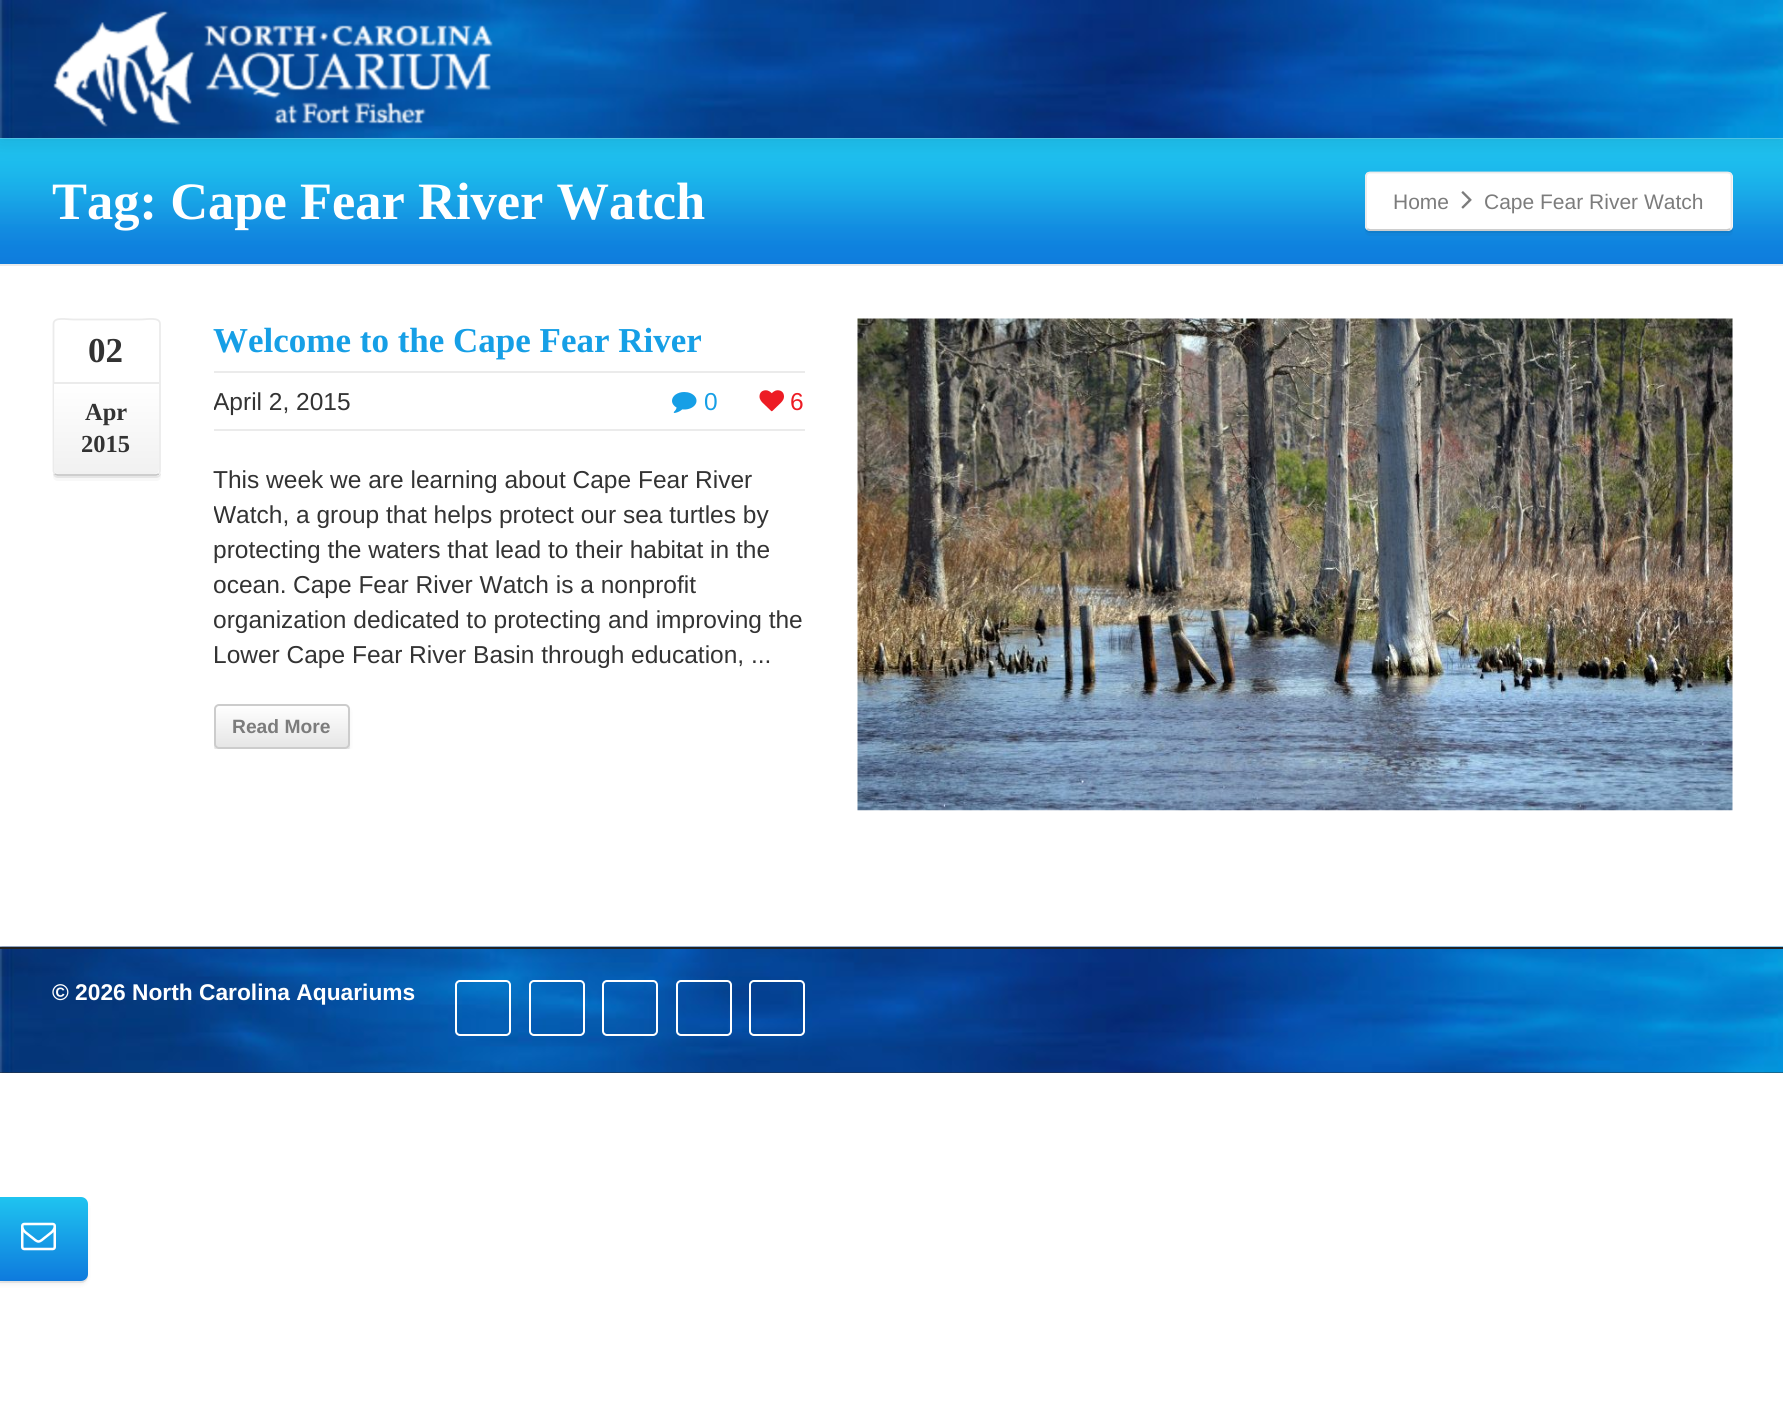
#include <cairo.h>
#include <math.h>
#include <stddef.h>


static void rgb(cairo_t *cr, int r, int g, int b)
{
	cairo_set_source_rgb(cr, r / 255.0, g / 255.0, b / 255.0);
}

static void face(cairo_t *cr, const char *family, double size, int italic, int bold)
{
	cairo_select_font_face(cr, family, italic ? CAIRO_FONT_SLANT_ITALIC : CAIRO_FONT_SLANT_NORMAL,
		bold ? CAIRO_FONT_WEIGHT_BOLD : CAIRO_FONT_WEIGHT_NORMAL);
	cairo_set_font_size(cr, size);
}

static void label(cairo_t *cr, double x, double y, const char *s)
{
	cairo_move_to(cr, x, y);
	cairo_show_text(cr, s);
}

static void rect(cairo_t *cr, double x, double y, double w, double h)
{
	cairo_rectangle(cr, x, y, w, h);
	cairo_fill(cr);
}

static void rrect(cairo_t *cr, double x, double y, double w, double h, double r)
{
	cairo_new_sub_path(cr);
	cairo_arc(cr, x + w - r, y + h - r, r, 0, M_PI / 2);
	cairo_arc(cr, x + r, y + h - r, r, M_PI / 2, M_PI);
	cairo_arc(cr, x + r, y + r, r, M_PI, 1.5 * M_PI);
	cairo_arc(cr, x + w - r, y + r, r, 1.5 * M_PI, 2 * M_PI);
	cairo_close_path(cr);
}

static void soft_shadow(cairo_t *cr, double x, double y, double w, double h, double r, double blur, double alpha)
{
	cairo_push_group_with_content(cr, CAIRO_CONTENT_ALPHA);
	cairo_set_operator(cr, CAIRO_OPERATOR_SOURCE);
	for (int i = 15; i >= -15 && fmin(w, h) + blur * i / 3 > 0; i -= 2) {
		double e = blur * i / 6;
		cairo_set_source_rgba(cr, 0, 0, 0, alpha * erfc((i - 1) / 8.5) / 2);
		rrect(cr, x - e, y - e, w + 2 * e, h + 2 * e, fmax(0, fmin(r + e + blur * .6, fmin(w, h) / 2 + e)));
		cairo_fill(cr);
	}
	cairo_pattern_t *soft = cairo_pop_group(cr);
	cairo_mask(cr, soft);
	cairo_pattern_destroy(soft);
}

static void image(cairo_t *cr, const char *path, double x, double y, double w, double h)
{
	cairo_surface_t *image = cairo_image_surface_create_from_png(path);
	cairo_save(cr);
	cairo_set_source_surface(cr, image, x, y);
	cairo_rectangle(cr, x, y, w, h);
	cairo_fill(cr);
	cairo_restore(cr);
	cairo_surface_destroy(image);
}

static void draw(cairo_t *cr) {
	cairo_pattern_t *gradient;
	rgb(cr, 255, 255, 255);
	cairo_paint(cr);
	image(cr, "image2.png", 0, 138, 1783, 126);
	rgb(cr, 0, 0, 0);
	soft_shadow(cr, 0, 4, 1783, 138, 0, 9, 0.1);
	image(cr, "image0.png", 0, 0, 1783, 138);
	image(cr, "image1.png", 53, 11, 440, 116);
	rgb(cr, 235, 235, 235);
	rect(cr, 0, 264, 1783, 2);
	face(cr, "Liberation Serif", 52.5, 0, 1);
	rgb(cr, 255, 255, 255);
	label(cr, 52, 219, "Tag: Cape Fear River Watch");
	cairo_set_source_rgba(cr, 0, 0, 0, 0.07);
	cairo_new_path(cr);
	cairo_move_to(cr, 1365, 226);
	cairo_line_to(cr, 1365, 228);
	cairo_curve_to(cr, 1365, 231, 1367, 233, 1370, 233);
	cairo_line_to(cr, 1728, 233);
	cairo_curve_to(cr, 1731, 233, 1733, 231, 1733, 228);
	cairo_line_to(cr, 1733, 178);
	cairo_line_to(cr, 1732, 176);
	cairo_line_to(cr, 1732, 226);
	cairo_curve_to(cr, 1732, 229, 1730, 231, 1727, 231);
	cairo_line_to(cr, 1370, 231);
	cairo_curve_to(cr, 1367, 231, 1365, 229, 1365, 226);
	cairo_close_path(cr);
	cairo_fill(cr);
	cairo_set_source_rgba(cr, 0, 0, 0, 0.03);
	cairo_new_path(cr);
	cairo_move_to(cr, 1365, 226);
	cairo_line_to(cr, 1365, 231);
	cairo_curve_to(cr, 1365, 234, 1367, 236, 1370, 236);
	cairo_line_to(cr, 1728, 236);
	cairo_curve_to(cr, 1731, 236, 1733, 234, 1733, 231);
	cairo_line_to(cr, 1733, 182);
	cairo_line_to(cr, 1732, 180);
	cairo_line_to(cr, 1732, 226);
	cairo_curve_to(cr, 1732, 229, 1730, 231, 1727, 231);
	cairo_line_to(cr, 1370, 231);
	cairo_curve_to(cr, 1367, 231, 1365, 229, 1365, 226);
	cairo_close_path(cr);
	cairo_fill(cr);
	rgb(cr, 255, 255, 255);
	rrect(cr, 1365, 172, 368, 59, 5);
	cairo_fill(cr);
	cairo_new_path(cr);
	cairo_move_to(cr, 1730.5, 229);
	cairo_line_to(cr, 1727, 230);
	cairo_line_to(cr, 1370, 230);
	cairo_line_to(cr, 1367, 229);
	cairo_set_source_rgba(cr, 0, 0, 0, 0.22);
	cairo_set_line_width(cr, 1.8);
	cairo_stroke(cr);
	cairo_new_path(cr);
	cairo_move_to(cr, 1367, 229);
	cairo_curve_to(cr, 1366.5, 228, 1366, 227, 1366, 226);
	cairo_line_to(cr, 1366, 177);
	cairo_curve_to(cr, 1366, 175.5, 1366.5, 174.5, 1367, 173.5);
	cairo_curve_to(cr, 1368, 173, 1369, 172.5, 1370, 172.5);
	cairo_line_to(cr, 1727, 172.5);
	cairo_curve_to(cr, 1728.5, 172.5, 1729.5, 173, 1730.5, 173.5);
	cairo_curve_to(cr, 1731, 174.5, 1731.5, 175.5, 1731.5, 177);
	cairo_line_to(cr, 1731.5, 226);
	cairo_curve_to(cr, 1731.5, 227, 1731, 228, 1730.5, 229);
	rgb(cr, 235, 235, 235);
	cairo_stroke(cr);
	face(cr, "Liberation Sans", 21, 0, 0);
	rgb(cr, 124, 124, 124);
	label(cr, 1393, 209, "Home");
	image(cr, "image3.png", 1461, 191, 11, 18);
	label(cr, 1484, 209, "Cape Fear River Watch");
	rgb(cr, 237, 237, 237);
	cairo_new_path(cr);
	cairo_move_to(cr, 53, 473);
	cairo_curve_to(cr, 53, 476, 55, 478, 58, 478);
	cairo_line_to(cr, 156, 478);
	cairo_curve_to(cr, 159, 478, 161, 476, 161, 473);
	cairo_line_to(cr, 161, 471);
	cairo_curve_to(cr, 161, 474, 159, 476, 156, 476);
	cairo_line_to(cr, 58, 476);
	cairo_curve_to(cr, 56, 476, 54, 475, 53, 473);
	cairo_close_path(cr);
	cairo_fill(cr);
	cairo_set_source_rgba(cr, 0, 0, 0, 0.03);
	cairo_new_path(cr);
	cairo_move_to(cr, 53, 473);
	cairo_line_to(cr, 53, 476);
	cairo_curve_to(cr, 53, 479, 55, 481, 58, 481);
	cairo_line_to(cr, 156, 481);
	cairo_curve_to(cr, 159, 481, 161, 479, 161, 476);
	cairo_line_to(cr, 161, 471);
	cairo_curve_to(cr, 161, 474, 159, 476, 156, 476);
	cairo_line_to(cr, 58, 476);
	cairo_curve_to(cr, 56, 476, 54, 475, 53, 473);
	cairo_close_path(cr);
	cairo_fill(cr);
	rgb(cr, 255, 255, 255);
	rrect(cr, 53, 319, 108, 157, 5);
	cairo_fill(cr);
	cairo_new_path(cr);
	cairo_move_to(cr, 159, 474);
	cairo_line_to(cr, 156, 475);
	cairo_line_to(cr, 57.5, 475);
	cairo_line_to(cr, 54.5, 474);
	cairo_set_source_rgba(cr, 0, 0, 0, 0.22);
	cairo_stroke(cr);
	cairo_new_path(cr);
	cairo_move_to(cr, 54.5, 474);
	cairo_line_to(cr, 53.5, 471);
	cairo_line_to(cr, 53.5, 324);
	cairo_curve_to(cr, 53.5, 316.5, 66, 319.5, 74, 319.5);
	cairo_line_to(cr, 139.5, 319.5);
	cairo_curve_to(cr, 147.5, 319.5, 160, 316.5, 160, 324);
	cairo_line_to(cr, 160, 471);
	cairo_line_to(cr, 159, 474);
	rgb(cr, 235, 235, 235);
	cairo_stroke(cr);
	face(cr, "Liberation Serif", 35, 0, 1);
	rgb(cr, 51, 51, 51);
	label(cr, 88, 362, "02");
	gradient = cairo_pattern_create_linear(107, 383, 107, 474);
	cairo_pattern_add_color_stop_rgba(gradient, 0, 1, 1, 1, 1);
	cairo_pattern_add_color_stop_rgba(gradient, 1, 0.945, 0.945, 0.945, 1);
	cairo_set_source(cr, gradient);
	cairo_pattern_destroy(gradient);
	cairo_new_path(cr);
	cairo_move_to(cr, 54, 383);
	cairo_line_to(cr, 159, 383);
	cairo_line_to(cr, 159, 469);
	cairo_curve_to(cr, 159, 472, 157, 474, 154, 474);
	cairo_line_to(cr, 59, 474);
	cairo_curve_to(cr, 56, 474, 54, 472, 54, 469);
	cairo_close_path(cr);
	cairo_fill(cr);
	rgb(cr, 235, 235, 235);
	rect(cr, 54, 382, 105, 2);
	face(cr, "Liberation Serif", 24.5, 0, 1);
	rgb(cr, 51, 51, 51);
	label(cr, 85, 420, "Apr");
	label(cr, 81, 452, "2015");
	face(cr, "Liberation Serif", 35, 0, 1);
	rgb(cr, 22, 159, 230);
	label(cr, 213, 352, "Welcome to the Cape Fear River");
	rgb(cr, 235, 235, 235);
	rect(cr, 214, 371, 591, 2);
	rect(cr, 214, 429, 591, 2);
	cairo_save(cr);
	cairo_rectangle(cr, 214, 383, 406, 35);
	cairo_clip(cr);
	face(cr, "Liberation Sans", 24.5, 0, 0);
	rgb(cr, 51, 51, 51);
	label(cr, 213, 410, "April 2, 2015");
	cairo_restore(cr);
	image(cr, "image4.png", 672, 392, 25, 21);
	face(cr, "Liberation Sans", 24.5, 0, 0);
	rgb(cr, 22, 159, 230);
	label(cr, 704, 410, "0");
	image(cr, "image5.png", 759, 390, 25, 22);
	rgb(cr, 237, 28, 36);
	label(cr, 790, 410, "6");
	rgb(cr, 51, 51, 51);
	label(cr, 213, 488, "This week we are learning about Cape Fear River");
	cairo_save(cr);
	cairo_rectangle(cr, 214, 319, 591, 430);
	cairo_clip(cr);
	label(cr, 213, 523, "Watch, a group that helps protect our sea turtles by");
	cairo_restore(cr);
	label(cr, 213, 558, "protecting the waters that lead to their habitat in the");
	cairo_save(cr);
	cairo_rectangle(cr, 214, 319, 591, 430);
	cairo_clip(cr);
	label(cr, 213, 593, "ocean.");
	cairo_restore(cr);
	label(cr, 293, 593, "Cape Fear River Watch is a nonprofit");
	cairo_save(cr);
	cairo_rectangle(cr, 214, 319, 591, 430);
	cairo_clip(cr);
	label(cr, 213, 628, "organization dedicated to protecting and improving the");
	cairo_restore(cr);
	label(cr, 213, 663, "Lower Cape Fear River Basin through education, ...");
	cairo_save(cr);
	cairo_rectangle(cr, 214, 319, 591, 430);
	cairo_clip(cr);
	rgb(cr, 235, 235, 235);
	cairo_new_path(cr);
	cairo_move_to(cr, 214, 746);
	cairo_curve_to(cr, 214, 749, 216, 751, 219, 751);
	cairo_line_to(cr, 345, 751);
	cairo_curve_to(cr, 348, 751, 350, 749, 350, 746);
	cairo_line_to(cr, 350, 744);
	cairo_curve_to(cr, 350, 747, 348, 749, 345, 749);
	cairo_line_to(cr, 219, 749);
	cairo_curve_to(cr, 217, 749, 215, 748, 214, 746);
	cairo_close_path(cr);
	cairo_fill(cr);
	cairo_restore(cr);
	cairo_save(cr);
	cairo_rectangle(cr, 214, 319, 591, 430);
	cairo_clip(cr);
	rgb(cr, 0, 0, 0);
	soft_shadow(cr, 214, 707, 136, 46, 5, 2, 0.05);
	cairo_restore(cr);
	cairo_save(cr);
	rrect(cr, 214, 704, 136, 45, 5);
	cairo_clip(cr);
	gradient = cairo_pattern_create_linear(282, 705, 282, 747);
	cairo_pattern_add_color_stop_rgba(gradient, 0, 1, 1, 1, 1);
	cairo_pattern_add_color_stop_rgba(gradient, 1, 0.902, 0.902, 0.902, 1);
	cairo_set_source(cr, gradient);
	cairo_pattern_destroy(gradient);
	rect(cr, 214, 705, 136, 42);
	cairo_restore(cr);
	rrect(cr, 215, 705, 134, 43, 4);
	rgb(cr, 204, 204, 204);
	cairo_set_line_width(cr, 2);
	cairo_stroke(cr);
	face(cr, "Liberation Sans", 19.25, 0, 1);
	rgb(cr, 124, 124, 124);
	label(cr, 232, 733, "Read More");
	image(cr, "image6.png", 857, 318, 876, 493);
	image(cr, "image7.png", 0, 946, 1783, 1);
	rgb(cr, 45, 45, 45);
	rect(cr, 0, 1072, 1783, 1);
	image(cr, "image8.png", 0, 946, 1783, 127);
	rgb(cr, 34, 34, 34);
	rect(cr, 0, 947, 1783, 2);
	face(cr, "Liberation Sans", 22.75, 0, 1);
	rgb(cr, 255, 255, 255);
	label(cr, 52, 1000, "© 2026 North Carolina Aquariums");
	rrect(cr, 456, 981, 54, 54, 4);
	cairo_stroke(cr);
	rrect(cr, 530, 981, 54, 54, 4);
	cairo_stroke(cr);
	rrect(cr, 603, 981, 54, 54, 4);
	cairo_stroke(cr);
	rrect(cr, 677, 981, 54, 54, 4);
	cairo_stroke(cr);
	rrect(cr, 750, 981, 54, 54, 4);
	cairo_stroke(cr);
	rgb(cr, 235, 235, 235);
	cairo_new_path(cr);
	cairo_move_to(cr, -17, 1277);
	cairo_curve_to(cr, -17, 1280, -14, 1283, -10, 1283);
	cairo_line_to(cr, 81, 1283);
	cairo_curve_to(cr, 85, 1283, 88, 1280, 88, 1276);
	cairo_line_to(cr, 88, 1206);
	cairo_line_to(cr, 87, 1203);
	cairo_line_to(cr, 88, 1262);
	cairo_curve_to(cr, 88, 1284, 88, 1281, 65, 1281);
	cairo_line_to(cr, 5, 1281);
	cairo_curve_to(cr, 0, 1281, -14, 1284, -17, 1277);
	cairo_close_path(cr);
	cairo_fill(cr);
	rgb(cr, 0, 0, 0);
	soft_shadow(cr, -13, 1201, 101, 84, 7, 2, 0.05);
	gradient = cairo_pattern_create_linear(35, 1197, 35, 1281);
	cairo_pattern_add_color_stop_rgba(gradient, 0, 0.122, 0.769, 0.941, 1);
	cairo_pattern_add_color_stop_rgba(gradient, 1, 0.055, 0.478, 0.867, 1);
	cairo_set_source(cr, gradient);
	cairo_pattern_destroy(gradient);
	rrect(cr, -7, 1197, 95, 84, 7);
	cairo_fill(cr);
	image(cr, "image9.png", 21, 1222, 35, 29);
}

int main(void) {
	cairo_surface_t *surface = cairo_image_surface_create(CAIRO_FORMAT_RGB24, 1783, 1422);
	cairo_t *cr = cairo_create(surface);
	cairo_font_options_t *options = cairo_font_options_create();
	cairo_font_options_set_hint_metrics(options, CAIRO_HINT_METRICS_OFF);
	cairo_font_options_set_hint_style(options, CAIRO_HINT_STYLE_NONE);
	cairo_set_font_options(cr, options);
	cairo_set_miter_limit(cr, 4);
	draw(cr);
	cairo_surface_write_to_png(surface, "render.png");
	cairo_font_options_destroy(options);
	cairo_destroy(cr);
	cairo_surface_destroy(surface);
	return 0;
}
